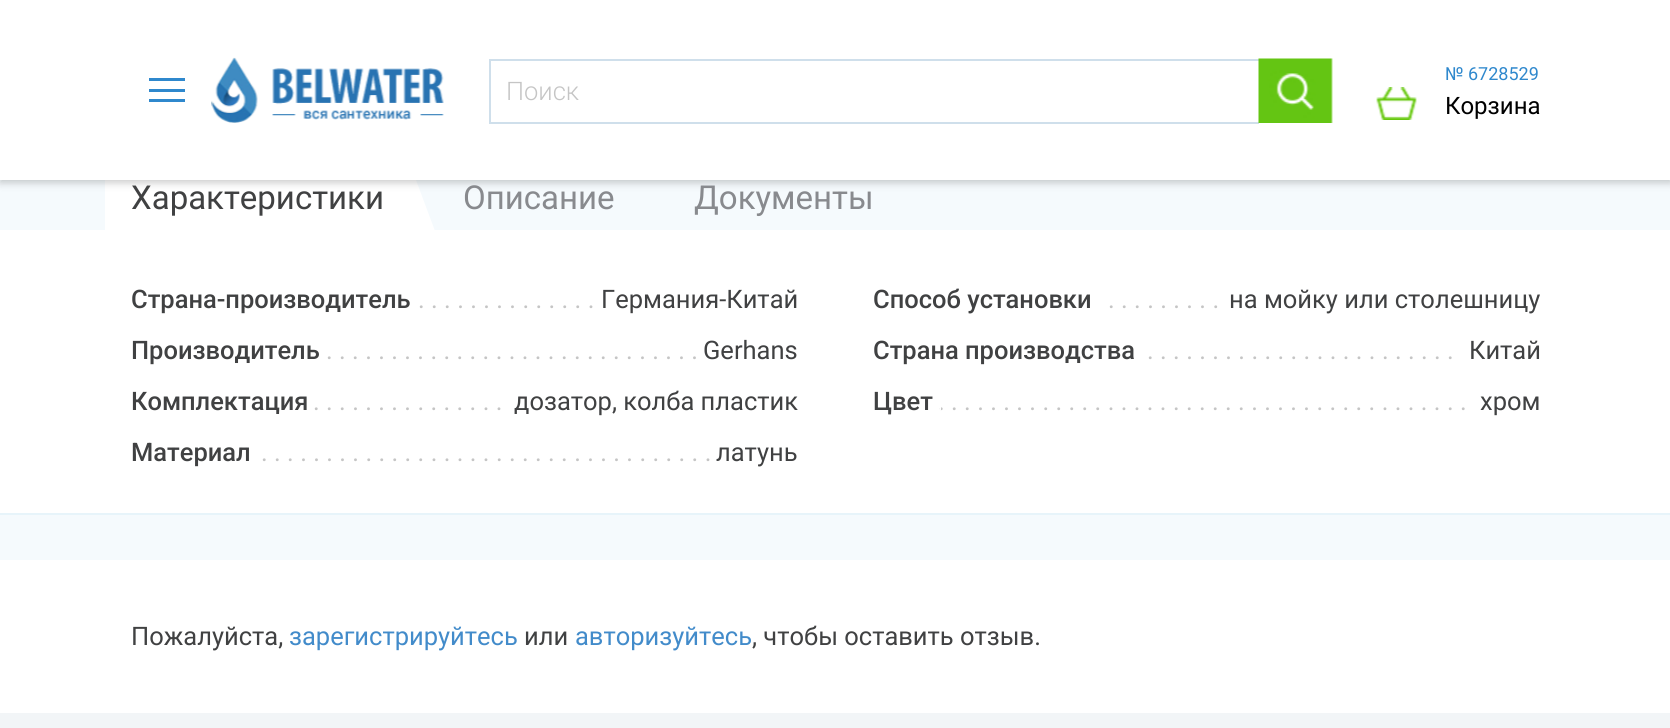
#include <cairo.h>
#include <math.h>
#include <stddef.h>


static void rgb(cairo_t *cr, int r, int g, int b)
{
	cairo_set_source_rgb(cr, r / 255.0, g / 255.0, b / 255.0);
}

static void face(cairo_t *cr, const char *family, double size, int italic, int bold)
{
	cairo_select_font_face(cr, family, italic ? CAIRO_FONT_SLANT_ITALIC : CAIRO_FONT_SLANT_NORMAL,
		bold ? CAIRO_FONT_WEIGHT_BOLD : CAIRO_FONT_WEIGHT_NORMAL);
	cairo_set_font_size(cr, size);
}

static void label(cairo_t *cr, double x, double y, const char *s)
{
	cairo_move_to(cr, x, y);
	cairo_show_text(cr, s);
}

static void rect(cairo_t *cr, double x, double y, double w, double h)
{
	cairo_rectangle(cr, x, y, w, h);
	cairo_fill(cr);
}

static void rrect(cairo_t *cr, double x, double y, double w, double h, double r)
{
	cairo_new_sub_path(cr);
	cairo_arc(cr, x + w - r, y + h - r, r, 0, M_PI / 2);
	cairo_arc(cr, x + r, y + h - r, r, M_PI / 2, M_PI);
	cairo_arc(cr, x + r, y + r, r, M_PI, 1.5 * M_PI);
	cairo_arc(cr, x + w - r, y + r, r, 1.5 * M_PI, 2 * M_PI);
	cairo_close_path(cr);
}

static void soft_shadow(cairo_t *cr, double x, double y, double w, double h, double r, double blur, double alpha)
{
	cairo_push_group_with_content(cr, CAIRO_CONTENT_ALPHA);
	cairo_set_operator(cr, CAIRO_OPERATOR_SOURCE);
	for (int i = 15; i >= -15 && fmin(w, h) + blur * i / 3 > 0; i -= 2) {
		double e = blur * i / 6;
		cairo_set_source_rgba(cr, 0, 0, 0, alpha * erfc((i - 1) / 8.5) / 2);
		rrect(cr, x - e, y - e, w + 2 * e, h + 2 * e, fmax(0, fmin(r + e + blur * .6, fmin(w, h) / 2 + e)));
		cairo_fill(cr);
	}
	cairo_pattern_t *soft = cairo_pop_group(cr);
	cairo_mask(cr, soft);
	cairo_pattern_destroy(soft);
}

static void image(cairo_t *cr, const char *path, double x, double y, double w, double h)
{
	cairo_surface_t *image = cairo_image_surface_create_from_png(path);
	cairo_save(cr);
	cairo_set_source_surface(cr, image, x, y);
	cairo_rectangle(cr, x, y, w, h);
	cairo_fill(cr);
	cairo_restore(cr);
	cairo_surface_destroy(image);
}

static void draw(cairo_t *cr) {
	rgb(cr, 245, 250, 253);
	cairo_paint(cr);
	rgb(cr, 255, 255, 255);
	rect(cr, 105, 180, 305, 50);
	rect(cr, 0, 230, 1670, 283);
	cairo_new_path(cr);
	cairo_move_to(cr, 410, 231);
	cairo_line_to(cr, 410, 164);
	cairo_line_to(cr, 435, 231);
	cairo_close_path(cr);
	cairo_fill(cr);
	rgb(cr, 0, 0, 0);
	soft_shadow(cr, 0, 3, 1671, 180, 0, 4, 0.2);
	rgb(cr, 255, 255, 255);
	rect(cr, 0, 0, 1670, 180);
	rgb(cr, 47, 136, 205);
	rect(cr, 149, 78, 36, 3);
	rect(cr, 149, 89, 36, 3);
	rect(cr, 149, 99, 36, 3);
	image(cr, "image0.png", 211, 57, 233, 66);
	rgb(cr, 207, 223, 235);
	rect(cr, 489, 59, 770, 2);
	rect(cr, 489, 122, 770, 2);
	rect(cr, 489, 59, 2, 64);
	face(cr, "Roboto Light", 25.5, 0, 0);
	rgb(cr, 197, 197, 197);
	label(cr, 506, 100, "Поиск");
	image(cr, "image1.png", 1258, 58, 75, 65);
	face(cr, "Roboto", 18, 0, 0);
	rgb(cr, 47, 136, 205);
	label(cr, 1445, 80, "№ 6728529");
	image(cr, "image2.png", 1376, 87, 41, 33);
	face(cr, "Roboto", 24, 0, 0);
	rgb(cr, 0, 0, 0);
	label(cr, 1445, 114, "Корзина");
	face(cr, "Roboto", 33, 0, 0);
	rgb(cr, 64, 65, 66);
	label(cr, 131, 209, "Характеристики");
	rgb(cr, 136, 138, 142);
	label(cr, 463, 209, "Описание");
	label(cr, 694, 209, "Документы");
	rgb(cr, 231, 244, 250);
	rect(cr, 0, 513, 1670, 2);
	face(cr, "Roboto Medium", 25.5, 0, 0);
	rgb(cr, 64, 65, 66);
	label(cr, 131, 308, "Страна-производитель");
	face(cr, "Roboto", 25.5, 0, 0);
	rgb(cr, 197, 197, 197);
	label(cr, 418, 308, ". . . . . . . . . . . . . .");
	rgb(cr, 64, 65, 66);
	label(cr, 601, 308, "Германия-Китай");
	face(cr, "Roboto Medium", 25.5, 0, 0);
	label(cr, 873, 308, "Способ установки");
	face(cr, "Roboto", 25.5, 0, 0);
	rgb(cr, 197, 197, 197);
	label(cr, 1108, 308, ". . . . . . . . .");
	rgb(cr, 64, 65, 66);
	label(cr, 1229, 308, "на мойку или столешницу");
	face(cr, "Roboto Medium", 25.5, 0, 0);
	label(cr, 131, 359, "Производитель");
	face(cr, "Roboto", 25.5, 0, 0);
	rgb(cr, 197, 197, 197);
	label(cr, 326, 359, ". . . . . . . . . . . . . . . . . . . . . . . . . . . . .");
	rgb(cr, 255, 255, 255);
	rect(cr, 696, 357, 1, 2);
	rgb(cr, 64, 65, 66);
	label(cr, 703, 359, "Gerhans");
	face(cr, "Roboto Medium", 25.5, 0, 0);
	label(cr, 873, 359, "Страна производства");
	face(cr, "Roboto", 25.5, 0, 0);
	rgb(cr, 197, 197, 197);
	label(cr, 1147, 359, ". . . . . . . . . . . . . . . . . . . . . . . .");
	rgb(cr, 64, 65, 66);
	label(cr, 1469, 359, "Китай");
	face(cr, "Roboto Medium", 25.5, 0, 0);
	label(cr, 131, 410, "Комплектация");
	face(cr, "Roboto", 25.5, 0, 0);
	rgb(cr, 197, 197, 197);
	label(cr, 313, 410, ". . . . . . . . . . . . . . .");
	rgb(cr, 64, 65, 66);
	label(cr, 514, 410, "дозатор, колба пластик");
	rgb(cr, 197, 197, 197);
	label(cr, 938, 410, ". . . . . . . . . . . . . . . . . . . . . . . . . . . . . . . . . . . . . . . . .");
	rgb(cr, 255, 255, 255);
	rect(cr, 940, 407, 1, 3);
	face(cr, "Roboto Medium", 25.5, 0, 0);
	rgb(cr, 64, 65, 66);
	label(cr, 873, 410, "Цвет");
	face(cr, "Roboto", 25.5, 0, 0);
	label(cr, 1480, 410, "хром");
	face(cr, "Roboto Medium", 25.5, 0, 0);
	label(cr, 131, 461, "Материал");
	face(cr, "Roboto", 25.5, 0, 0);
	rgb(cr, 197, 197, 197);
	label(cr, 261, 461, ". . . . . . . . . . . . . . . . . . . . . . . . . . . . . . . . . . .");
	rgb(cr, 64, 65, 66);
	label(cr, 716, 461, "латунь");
	rgb(cr, 255, 255, 255);
	rect(cr, 0, 560, 1670, 153);
	rgb(cr, 64, 65, 66);
	label(cr, 131, 645, "Пожалуйста,");
	rgb(cr, 66, 139, 202);
	label(cr, 289, 645, "зарегистрируйтесь");
	rgb(cr, 64, 65, 66);
	label(cr, 524, 645, "или");
	rgb(cr, 66, 139, 202);
	label(cr, 575, 645, "авторизуйтесь");
	rgb(cr, 64, 65, 66);
	label(cr, 752, 645, ", чтобы оставить отзыв.");
	rgb(cr, 242, 245, 247);
	rect(cr, 0, 713, 1670, 15);
}

int main(void) {
	cairo_surface_t *surface = cairo_image_surface_create(CAIRO_FORMAT_RGB24, 1670, 728);
	cairo_t *cr = cairo_create(surface);
	cairo_font_options_t *options = cairo_font_options_create();
	cairo_font_options_set_hint_metrics(options, CAIRO_HINT_METRICS_OFF);
	cairo_font_options_set_hint_style(options, CAIRO_HINT_STYLE_NONE);
	cairo_set_font_options(cr, options);
	cairo_set_miter_limit(cr, 4);
	draw(cr);
	cairo_surface_write_to_png(surface, "render.png");
	cairo_font_options_destroy(options);
	cairo_destroy(cr);
	cairo_surface_destroy(surface);
	return 0;
}
